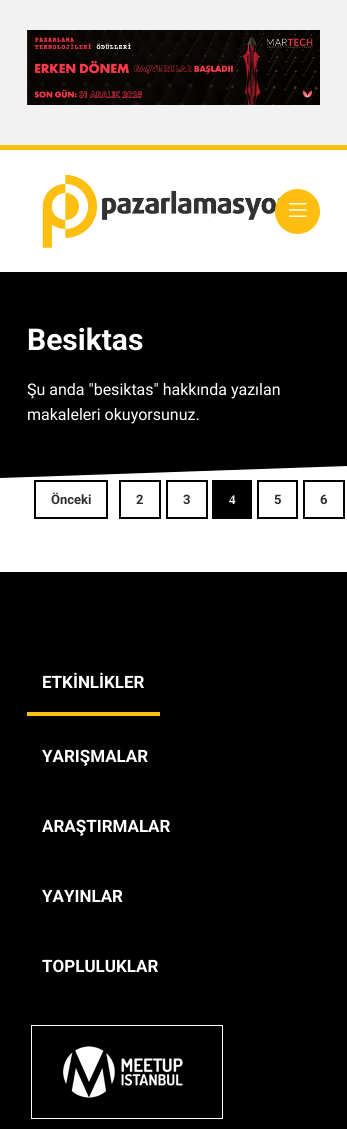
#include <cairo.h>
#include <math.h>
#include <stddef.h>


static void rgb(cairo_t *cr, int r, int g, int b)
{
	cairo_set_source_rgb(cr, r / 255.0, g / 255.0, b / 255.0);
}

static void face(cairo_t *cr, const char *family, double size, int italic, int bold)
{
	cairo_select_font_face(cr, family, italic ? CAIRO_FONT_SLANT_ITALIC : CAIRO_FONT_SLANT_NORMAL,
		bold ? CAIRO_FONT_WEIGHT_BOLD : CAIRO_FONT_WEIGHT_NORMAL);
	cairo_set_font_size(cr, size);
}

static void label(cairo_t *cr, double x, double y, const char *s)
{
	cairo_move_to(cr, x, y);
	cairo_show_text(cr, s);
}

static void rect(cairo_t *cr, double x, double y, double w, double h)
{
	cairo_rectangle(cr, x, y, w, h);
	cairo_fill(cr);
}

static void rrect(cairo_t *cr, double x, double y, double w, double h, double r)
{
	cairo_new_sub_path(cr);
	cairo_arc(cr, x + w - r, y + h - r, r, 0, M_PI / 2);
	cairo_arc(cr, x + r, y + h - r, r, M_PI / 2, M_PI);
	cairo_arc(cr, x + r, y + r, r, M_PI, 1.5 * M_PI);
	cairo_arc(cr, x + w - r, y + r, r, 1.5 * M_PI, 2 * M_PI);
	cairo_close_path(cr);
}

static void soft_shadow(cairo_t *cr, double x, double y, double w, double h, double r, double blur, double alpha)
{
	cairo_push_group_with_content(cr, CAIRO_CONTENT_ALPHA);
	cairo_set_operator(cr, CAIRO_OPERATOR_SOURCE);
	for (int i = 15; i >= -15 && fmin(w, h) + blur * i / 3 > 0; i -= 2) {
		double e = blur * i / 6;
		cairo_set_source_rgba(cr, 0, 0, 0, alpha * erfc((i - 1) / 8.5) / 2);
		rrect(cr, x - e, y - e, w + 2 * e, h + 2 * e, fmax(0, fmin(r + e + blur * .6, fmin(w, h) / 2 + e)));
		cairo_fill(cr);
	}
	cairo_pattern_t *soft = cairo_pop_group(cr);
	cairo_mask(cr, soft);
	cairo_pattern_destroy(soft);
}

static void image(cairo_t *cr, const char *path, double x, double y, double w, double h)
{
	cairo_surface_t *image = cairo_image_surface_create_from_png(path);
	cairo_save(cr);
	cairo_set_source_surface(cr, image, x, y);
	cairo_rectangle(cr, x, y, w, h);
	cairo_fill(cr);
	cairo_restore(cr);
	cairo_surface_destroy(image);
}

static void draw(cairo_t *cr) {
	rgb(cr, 255, 255, 255);
	cairo_paint(cr);
	rgb(cr, 0, 0, 0);
	cairo_new_path(cr);
	cairo_move_to(cr, 0, 128);
	cairo_line_to(cr, 347, 116);
	cairo_line_to(cr, 347, 466);
	cairo_line_to(cr, 0, 478);
	cairo_close_path(cr);
	cairo_fill(cr);
	rgb(cr, 46, 63, 99);
	soft_shadow(cr, 0, 140, 347, 122, 0, 19, 0.15);
	rgb(cr, 242, 242, 243);
	rect(cr, 0, 0, 347, 145);
	rgb(cr, 254, 191, 16);
	rect(cr, 0, 145, 347, 5);
	image(cr, "image0.png", 27, 30, 293, 75);
	rgb(cr, 255, 255, 255);
	rect(cr, 0, 150, 347, 122);
	image(cr, "image1.png", 42, 174, 238, 74);
	rgb(cr, 254, 191, 16);
	cairo_arc(cr, 297.5, 211.5, 22.5, 0, 2 * M_PI);
	cairo_fill(cr);
	image(cr, "image2.png", 289, 203, 18, 14);
	face(cr, "Roboto", 30, 0, 1);
	rgb(cr, 255, 255, 255);
	label(cr, 27, 350, "Besiktas");
	face(cr, "Roboto", 16, 0, 0);
	label(cr, 27, 395, "Şu anda \"besiktas\" hakkında yazılan");
	label(cr, 27, 420, "makaleleri okuyorsunuz.");
	cairo_rectangle(cr, 35, 481, 72, 37);
	rgb(cr, 0, 0, 0);
	cairo_stroke(cr);
	face(cr, "Roboto", 13, 0, 1);
	rgb(cr, 47, 47, 47);
	label(cr, 51, 504, "Önceki");
	cairo_rectangle(cr, 120, 481, 40, 37);
	rgb(cr, 0, 0, 0);
	cairo_stroke(cr);
	rgb(cr, 47, 47, 47);
	label(cr, 136, 504, "2");
	cairo_rectangle(cr, 167, 481, 40, 37);
	rgb(cr, 0, 0, 0);
	cairo_stroke(cr);
	rgb(cr, 47, 47, 47);
	label(cr, 183, 504, "3");
	rgb(cr, 0, 0, 0);
	rect(cr, 212, 480, 40, 39);
	face(cr, "Liberation Serif", 13, 0, 1);
	rgb(cr, 255, 255, 255);
	label(cr, 229, 504, "4");
	cairo_rectangle(cr, 258, 481, 39, 37);
	rgb(cr, 0, 0, 0);
	cairo_stroke(cr);
	face(cr, "Roboto", 13, 0, 1);
	rgb(cr, 47, 47, 47);
	label(cr, 274, 504, "5");
	cairo_rectangle(cr, 304, 481, 40, 37);
	rgb(cr, 0, 0, 0);
	cairo_stroke(cr);
	rgb(cr, 47, 47, 47);
	label(cr, 320, 504, "6");
	rgb(cr, 0, 0, 0);
	rect(cr, 0, 572, 347, 557);
	rgb(cr, 254, 191, 16);
	rect(cr, 27, 712, 133, 4);
	face(cr, "Roboto", 17, 0, 1);
	rgb(cr, 255, 255, 255);
	label(cr, 42, 688, "ETKİNLİKLER");
	label(cr, 42, 762, "YARIŞMALAR");
	label(cr, 42, 832, "ARAŞTIRMALAR");
	label(cr, 42, 902, "YAYINLAR");
	label(cr, 42, 972, "TOPLULUKLAR");
	image(cr, "image3.png", 31, 1025, 192, 94);
}

int main(void) {
	cairo_surface_t *surface = cairo_image_surface_create(CAIRO_FORMAT_RGB24, 347, 1129);
	cairo_t *cr = cairo_create(surface);
	cairo_font_options_t *options = cairo_font_options_create();
	cairo_font_options_set_hint_metrics(options, CAIRO_HINT_METRICS_OFF);
	cairo_font_options_set_hint_style(options, CAIRO_HINT_STYLE_NONE);
	cairo_set_font_options(cr, options);
	cairo_set_miter_limit(cr, 4);
	draw(cr);
	cairo_surface_write_to_png(surface, "render.png");
	cairo_font_options_destroy(options);
	cairo_destroy(cr);
	cairo_surface_destroy(surface);
	return 0;
}
